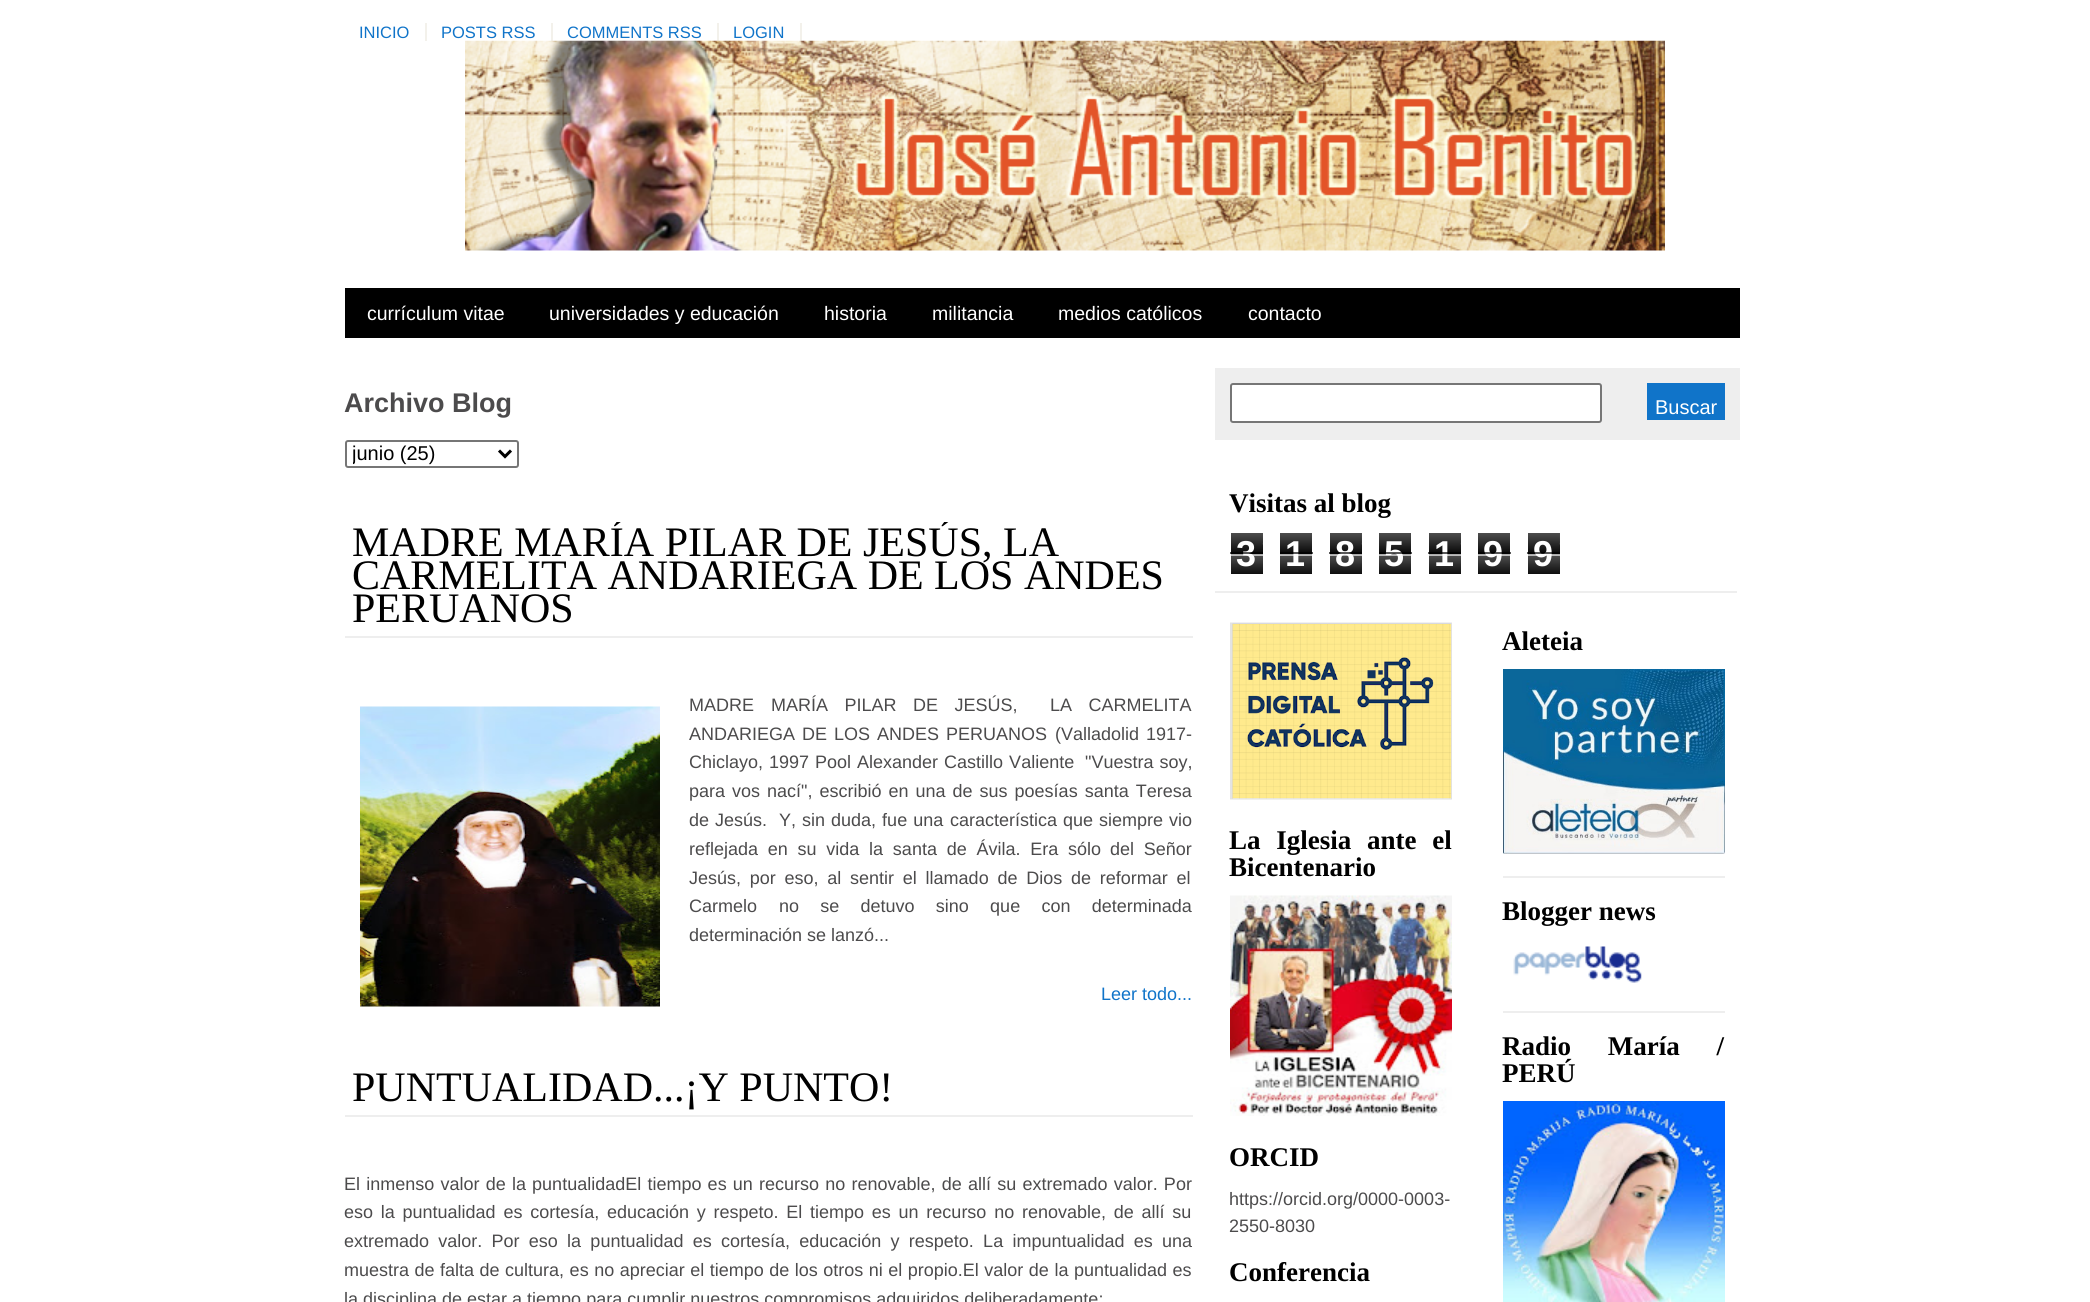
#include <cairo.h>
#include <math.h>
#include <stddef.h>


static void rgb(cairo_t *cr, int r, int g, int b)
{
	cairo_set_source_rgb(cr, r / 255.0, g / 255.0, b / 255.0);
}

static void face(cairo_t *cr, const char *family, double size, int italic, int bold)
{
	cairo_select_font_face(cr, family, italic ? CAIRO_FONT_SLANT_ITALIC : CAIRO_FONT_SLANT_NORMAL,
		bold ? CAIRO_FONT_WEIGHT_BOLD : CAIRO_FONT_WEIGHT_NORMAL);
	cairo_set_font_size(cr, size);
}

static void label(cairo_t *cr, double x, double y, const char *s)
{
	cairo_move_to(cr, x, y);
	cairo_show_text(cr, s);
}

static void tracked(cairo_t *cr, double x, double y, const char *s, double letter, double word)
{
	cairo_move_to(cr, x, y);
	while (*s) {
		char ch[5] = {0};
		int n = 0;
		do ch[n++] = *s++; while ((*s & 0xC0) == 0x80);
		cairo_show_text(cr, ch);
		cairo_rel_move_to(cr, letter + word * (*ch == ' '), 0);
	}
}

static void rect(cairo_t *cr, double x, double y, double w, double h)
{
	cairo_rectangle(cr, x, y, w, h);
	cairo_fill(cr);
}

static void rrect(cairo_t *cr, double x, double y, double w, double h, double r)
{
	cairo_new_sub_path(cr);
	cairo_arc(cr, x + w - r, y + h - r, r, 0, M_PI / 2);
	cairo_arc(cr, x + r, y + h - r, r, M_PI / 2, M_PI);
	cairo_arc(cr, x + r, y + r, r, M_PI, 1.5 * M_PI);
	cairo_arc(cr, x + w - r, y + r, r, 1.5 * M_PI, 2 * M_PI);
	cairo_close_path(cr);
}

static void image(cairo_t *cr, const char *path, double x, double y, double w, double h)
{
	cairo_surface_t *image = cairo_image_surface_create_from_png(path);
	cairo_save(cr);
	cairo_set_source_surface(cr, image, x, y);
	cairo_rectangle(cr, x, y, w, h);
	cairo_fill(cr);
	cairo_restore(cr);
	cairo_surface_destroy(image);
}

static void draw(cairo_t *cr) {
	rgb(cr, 255, 255, 255);
	cairo_paint(cr);
	rgb(cr, 243, 241, 235);
	rect(cr, 425, 23, 2, 18);
	face(cr, "Liberation Sans", 16.5, 0, 0);
	rgb(cr, 16, 116, 201);
	label(cr, 359, 38, "INICIO");
	rgb(cr, 243, 241, 235);
	rect(cr, 551, 23, 2, 18);
	rgb(cr, 16, 116, 201);
	label(cr, 441, 38, "POSTS RSS");
	rgb(cr, 243, 241, 235);
	rect(cr, 717, 23, 2, 18);
	rgb(cr, 16, 116, 201);
	label(cr, 567, 38, "COMMENTS RSS");
	rgb(cr, 243, 241, 235);
	rect(cr, 800, 23, 2, 18);
	rgb(cr, 16, 116, 201);
	label(cr, 733, 38, "LOGIN");
	image(cr, "image0.png", 465, 40, 1200, 211);
	rgb(cr, 0, 0, 0);
	rect(cr, 345, 288, 1395, 50);
	face(cr, "Liberation Sans", 19.5, 0, 0);
	rgb(cr, 255, 255, 255);
	label(cr, 367, 320, "currículum vitae");
	label(cr, 549, 320, "universidades y educación");
	label(cr, 824, 320, "historia");
	label(cr, 932, 320, "militancia");
	label(cr, 1058, 320, "medios católicos");
	label(cr, 1248, 320, "contacto");
	face(cr, "Liberation Sans", 27, 0, 1);
	rgb(cr, 76, 75, 76);
	label(cr, 344, 412, "Archivo Blog");
	rrect(cr, 346, 441, 172, 26, 2);
	rgb(cr, 118, 118, 118);
	cairo_stroke(cr);
	cairo_new_path(cr);
	cairo_move_to(cr, 499, 450.5);
	cairo_line_to(cr, 505, 456.5);
	cairo_line_to(cr, 511, 450.5);
	rgb(cr, 0, 0, 0);
	cairo_set_line_width(cr, 3);
	cairo_stroke(cr);
	cairo_save(cr);
	cairo_rectangle(cr, 353, 441, 141, 26);
	cairo_clip(cr);
	face(cr, "Liberation Sans", 20, 0, 0);
	label(cr, 352, 460, "junio (25)");
	cairo_restore(cr);
	rgb(cr, 238, 238, 238);
	rect(cr, 345, 636, 848, 2);
	cairo_save(cr);
	cairo_rectangle(cr, 345, 522, 848, 530);
	cairo_clip(cr);
	face(cr, "Liberation Serif", 42, 0, 0);
	rgb(cr, 0, 0, 0);
	label(cr, 352, 556, "MADRE MARÍA PILAR DE JESÚS,");
	cairo_restore(cr);
	face(cr, "Liberation Serif", 42, 0, 0);
	rgb(cr, 0, 0, 0);
	label(cr, 1003, 556, "LA");
	label(cr, 352, 589, "CARMELITA ANDARIEGA DE LOS ANDES");
	label(cr, 352, 622, "PERUANOS");
	image(cr, "image1.png", 360, 706, 300, 301);
	face(cr, "Liberation Sans", 18, 0, 0);
	rgb(cr, 76, 75, 76);
	label(cr, 689, 711, "MADRE");
	tracked(cr, 771, 711, "MARÍA PILAR DE JESÚS,", 0, 11.5);
	tracked(cr, 1050, 711, "LA CARMELITA", 0, 11.5);
	tracked(cr, 689, 740, "ANDARIEGA DE LOS ANDES PERUANOS", 0, 2);
	label(cr, 1055, 740, "(Valladolid");
	label(cr, 1146, 740, "1917-");
	tracked(cr, 689, 768, "Chiclayo, 1997", 0, 1);
	tracked(cr, 815, 768, "Pool Alexander Castillo Valiente", 0, 1);
	tracked(cr, 1085, 768, "\"Vuestra soy,", 0, 1);
	tracked(cr, 689, 797, "para vos nací\", escribió en una de sus poesías santa Teresa", 0, 2);
	tracked(cr, 689, 826, "de Jesús.  Y, sin duda, fue una", 0, 1);
	tracked(cr, 950, 826, "característica que siempre vio", 0, 1);
	tracked(cr, 689, 855, "reflejada en su vida la santa de Ávila. Era sólo", 0, 4.75);
	tracked(cr, 1110, 855, "del Señor", 0, 4.75);
	tracked(cr, 689, 884, "Jesús, por eso, al sentir el llamado de Dios de reformar el", 0, 3.75);
	label(cr, 689, 912, "Carmelo");
	tracked(cr, 779, 912, "no se detuvo sino que con determinada", 0, 16.25);
	label(cr, 689, 941, "determinación se lanzó...");
	rgb(cr, 16, 116, 201);
	label(cr, 1101, 1000, "Leer todo...");
	rgb(cr, 238, 238, 238);
	rect(cr, 345, 1115, 848, 2);
	face(cr, "Liberation Serif", 42, 0, 0);
	rgb(cr, 0, 0, 0);
	label(cr, 352, 1101, "PUNTUALIDAD...¡Y PUNTO!");
	face(cr, "Liberation Sans", 18, 0, 0);
	rgb(cr, 76, 75, 76);
	tracked(cr, 344, 1190, "El inmenso valor de la puntualidadEl tiempo es un recurso no renovable, de allí su extremado valor. Por", 0, 1.2);
	tracked(cr, 344, 1218, "eso la puntualidad es cortesía, educación y respeto. El tiempo es un recurso no renovable, de allí su", 0, 2.75);
	tracked(cr, 344, 1247, "extremado valor. Por eso la puntualidad es cortesía, educación y respeto. La impuntualidad es una", 0, 4.25);
	tracked(cr, 344, 1276, "muestra de falta de cultura, es no apreciar el tiempo de los otros ni el propio.El valor de la puntualidad es", 0, 0.5);
	label(cr, 344, 1305, "la disciplina de estar a tiempo para cumplir nuestros compromisos adquiridos deliberadamente:");
	rgb(cr, 238, 238, 238);
	rect(cr, 1215, 368, 525, 72);
	rgb(cr, 255, 255, 255);
	rrect(cr, 1231, 384, 370, 38, 2);
	cairo_fill_preserve(cr);
	rgb(cr, 118, 118, 118);
	cairo_set_line_width(cr, 2);
	cairo_stroke(cr);
	rgb(cr, 16, 116, 201);
	rect(cr, 1647, 383, 78, 37);
	face(cr, "Liberation Sans", 20, 0, 0);
	rgb(cr, 255, 255, 255);
	label(cr, 1655, 414, "Buscar");
	rgb(cr, 238, 238, 238);
	rect(cr, 1215, 591, 522, 2);
	face(cr, "Liberation Serif", 27, 0, 1);
	rgb(cr, 0, 0, 0);
	label(cr, 1229, 512, "Visitas al blog");
	image(cr, "image2.png", 1231, 533, 32, 41);
	face(cr, "Liberation Sans", 36, 0, 1);
	rgb(cr, 255, 255, 255);
	label(cr, 1236, 566, "3");
	cairo_set_source_rgba(cr, 0, 0, 0, 0.65);
	rect(cr, 1230, 552, 33, 2);
	cairo_set_source_rgba(cr, 1, 1, 1, 0.65);
	rect(cr, 1230, 554, 33, 2);
	image(cr, "image3.png", 1280, 533, 32, 41);
	rgb(cr, 255, 255, 255);
	label(cr, 1285, 566, "1");
	cairo_set_source_rgba(cr, 0, 0, 0, 0.65);
	rect(cr, 1280, 552, 33, 2);
	cairo_set_source_rgba(cr, 1, 1, 1, 0.65);
	rect(cr, 1280, 554, 33, 2);
	image(cr, "image2.png", 1330, 533, 32, 41);
	rgb(cr, 255, 255, 255);
	label(cr, 1335, 566, "8");
	cairo_set_source_rgba(cr, 0, 0, 0, 0.65);
	rect(cr, 1329, 552, 33, 2);
	cairo_set_source_rgba(cr, 1, 1, 1, 0.65);
	rect(cr, 1329, 554, 33, 2);
	image(cr, "image3.png", 1379, 533, 32, 41);
	rgb(cr, 255, 255, 255);
	label(cr, 1384, 566, "5");
	cairo_set_source_rgba(cr, 0, 0, 0, 0.65);
	rect(cr, 1379, 552, 33, 2);
	cairo_set_source_rgba(cr, 1, 1, 1, 0.65);
	rect(cr, 1379, 554, 33, 2);
	image(cr, "image2.png", 1429, 533, 32, 41);
	rgb(cr, 255, 255, 255);
	label(cr, 1434, 566, "1");
	cairo_set_source_rgba(cr, 0, 0, 0, 0.65);
	rect(cr, 1428, 552, 33, 2);
	cairo_set_source_rgba(cr, 1, 1, 1, 0.65);
	rect(cr, 1428, 554, 33, 2);
	image(cr, "image3.png", 1478, 533, 32, 41);
	rgb(cr, 255, 255, 255);
	label(cr, 1483, 566, "9");
	cairo_set_source_rgba(cr, 0, 0, 0, 0.65);
	rect(cr, 1478, 552, 33, 2);
	cairo_set_source_rgba(cr, 1, 1, 1, 0.65);
	rect(cr, 1478, 554, 33, 2);
	image(cr, "image2.png", 1528, 533, 32, 41);
	rgb(cr, 255, 255, 255);
	label(cr, 1533, 566, "9");
	cairo_set_source_rgba(cr, 0, 0, 0, 0.65);
	rect(cr, 1527, 552, 33, 2);
	cairo_set_source_rgba(cr, 1, 1, 1, 0.65);
	rect(cr, 1527, 554, 33, 2);
	image(cr, "image4.png", 1230, 622, 222, 178);
	face(cr, "Liberation Serif", 27, 0, 1);
	rgb(cr, 0, 0, 0);
	tracked(cr, 1229, 849, "La Iglesia ante el", 0, 9);
	label(cr, 1229, 876, "Bicentenario");
	image(cr, "image5.png", 1230, 895, 222, 221);
	label(cr, 1229, 1166, "ORCID");
	face(cr, "Liberation Sans", 18, 0, 0);
	rgb(cr, 76, 75, 76);
	label(cr, 1229, 1205, "https://orcid.org/0000-0003-");
	label(cr, 1229, 1232, "2550-8030");
	face(cr, "Liberation Serif", 27, 0, 1);
	rgb(cr, 0, 0, 0);
	label(cr, 1229, 1281, "Conferencia");
	rgb(cr, 238, 238, 238);
	rect(cr, 1503, 876, 222, 2);
	rgb(cr, 0, 0, 0);
	label(cr, 1502, 650, "Aleteia");
	image(cr, "image6.png", 1503, 669, 222, 185);
	rgb(cr, 238, 238, 238);
	rect(cr, 1503, 1011, 222, 2);
	rgb(cr, 0, 0, 0);
	label(cr, 1502, 920, "Blogger news");
	image(cr, "image7.png", 1513, 946, 129, 37);
	tracked(cr, 1502, 1055, "Radio María /", 0, 30);
	label(cr, 1502, 1082, "PERÚ");
	image(cr, "image8.png", 1503, 1101, 222, 201);
}

int main(void) {
	cairo_surface_t *surface = cairo_image_surface_create(CAIRO_FORMAT_RGB24, 2090, 1302);
	cairo_t *cr = cairo_create(surface);
	cairo_font_options_t *options = cairo_font_options_create();
	cairo_font_options_set_hint_metrics(options, CAIRO_HINT_METRICS_OFF);
	cairo_font_options_set_hint_style(options, CAIRO_HINT_STYLE_NONE);
	cairo_set_font_options(cr, options);
	cairo_set_miter_limit(cr, 4);
	draw(cr);
	cairo_surface_write_to_png(surface, "render.png");
	cairo_font_options_destroy(options);
	cairo_destroy(cr);
	cairo_surface_destroy(surface);
	return 0;
}
